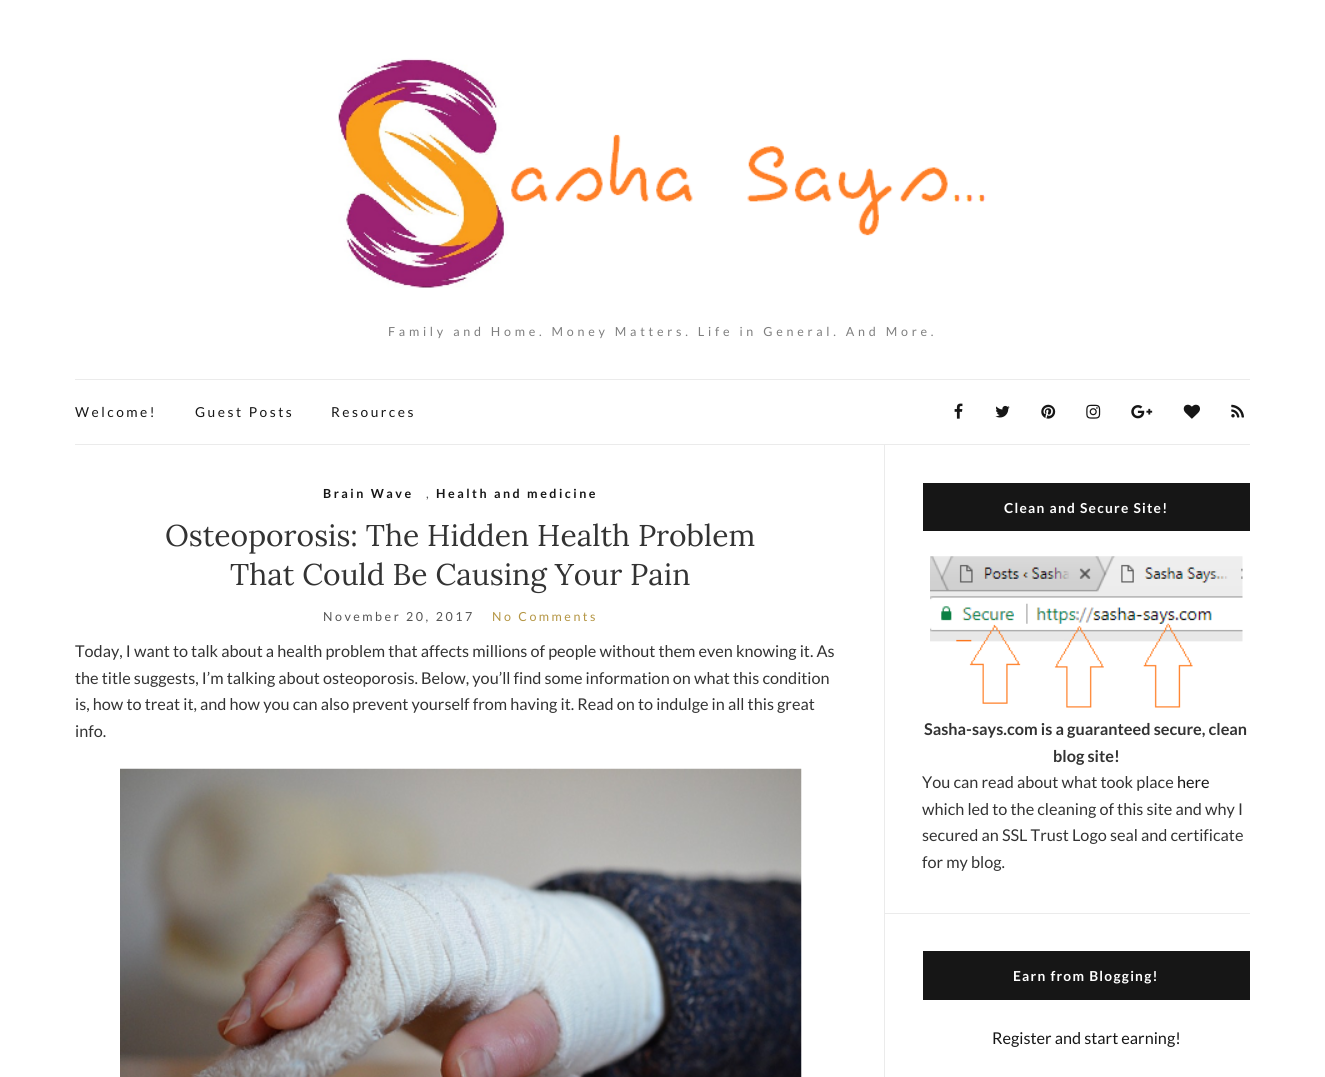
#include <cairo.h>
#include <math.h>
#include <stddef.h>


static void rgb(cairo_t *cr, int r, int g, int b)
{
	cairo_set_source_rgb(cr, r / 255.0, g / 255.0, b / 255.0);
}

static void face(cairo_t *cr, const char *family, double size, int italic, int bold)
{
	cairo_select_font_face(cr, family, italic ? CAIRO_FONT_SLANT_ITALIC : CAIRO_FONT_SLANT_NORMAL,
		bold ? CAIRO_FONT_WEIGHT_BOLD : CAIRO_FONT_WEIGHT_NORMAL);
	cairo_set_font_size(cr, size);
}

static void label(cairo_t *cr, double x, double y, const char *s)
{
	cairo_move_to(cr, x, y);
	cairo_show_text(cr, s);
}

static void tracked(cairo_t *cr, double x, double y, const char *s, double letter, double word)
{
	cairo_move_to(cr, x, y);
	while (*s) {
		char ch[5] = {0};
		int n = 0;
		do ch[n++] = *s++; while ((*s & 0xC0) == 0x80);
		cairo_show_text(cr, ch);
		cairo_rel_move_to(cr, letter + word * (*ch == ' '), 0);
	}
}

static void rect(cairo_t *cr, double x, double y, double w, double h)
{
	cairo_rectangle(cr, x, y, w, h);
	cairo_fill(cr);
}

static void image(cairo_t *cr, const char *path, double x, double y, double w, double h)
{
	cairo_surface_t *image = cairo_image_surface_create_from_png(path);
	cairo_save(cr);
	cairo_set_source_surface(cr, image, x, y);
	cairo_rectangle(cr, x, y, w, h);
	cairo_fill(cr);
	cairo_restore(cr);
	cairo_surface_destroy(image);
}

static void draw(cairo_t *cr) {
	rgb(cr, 255, 255, 255);
	cairo_paint(cr);
	image(cr, "image0.png", 338, 58, 648, 230);
	face(cr, "Lato", 12.5, 0, 0);
	rgb(cr, 126, 126, 126);
	tracked(cr, 388, 336, "Family and Home. Money Matters. Life in General. And More.", 3.75, 0);
	rgb(cr, 235, 235, 235);
	rect(cr, 75, 379, 1175, 1);
	rect(cr, 75, 444, 1175, 1);
	face(cr, "Lato", 13.75, 0, 0);
	rgb(cr, 22, 22, 22);
	tracked(cr, 75, 417, "Welcome!", 2.5, 0);
	tracked(cr, 195, 417, "Guest Posts", 2.5, 0);
	tracked(cr, 331, 417, "Resources", 2.5, 0);
	image(cr, "image1.png", 954, 403, 9, 16);
	image(cr, "image2.png", 995, 405, 15, 13);
	image(cr, "image3.png", 1041, 404, 15, 15);
	image(cr, "image4.png", 1086, 404, 15, 15);
	image(cr, "image5.png", 1131, 405, 22, 14);
	image(cr, "image6.png", 1183, 404, 17, 15);
	image(cr, "image7.png", 1231, 404, 13, 14);
	face(cr, "Lato", 12.5, 0, 1);
	tracked(cr, 323, 498, "Brain Wave", 2.5, 0);
	face(cr, "Lato", 12.5, 0, 0);
	rgb(cr, 84, 84, 84);
	tracked(cr, 426, 498, ",", 2.5, 0);
	face(cr, "Lato", 12.5, 0, 1);
	rgb(cr, 22, 22, 22);
	tracked(cr, 436, 498, "Health and medicine", 2.5, 0);
	face(cr, "Lora", 30, 0, 0);
	rgb(cr, 51, 51, 51);
	label(cr, 165, 546, "Osteoporosis: The Hidden Health Problem");
	label(cr, 230, 585, "That Could Be Causing Your Pain");
	face(cr, "Lato", 12.5, 0, 0);
	rgb(cr, 84, 84, 84);
	tracked(cr, 323, 621, "November 20, 2017", 2.5, 0);
	rgb(cr, 180, 149, 67);
	tracked(cr, 492, 621, "No Comments", 2.5, 0);
	face(cr, "Lato", 16.25, 0, 0);
	rgb(cr, 51, 51, 51);
	label(cr, 75, 657, "Today, I want to talk about a health problem that affects millions of people without them even knowing it. As");
	label(cr, 75, 684, "the title suggests, I’m talking about osteoporosis. Below, you’ll find some information on what this condition");
	label(cr, 75, 710, "is, how to treat it, and how you can also prevent yourself from having it. Read on to indulge in all this great");
	label(cr, 75, 737, "info.");
	image(cr, "image8.png", 120, 768, 682, 309);
	rgb(cr, 235, 235, 235);
	rect(cr, 884, 445, 1, 632);
	rect(cr, 885, 913, 365, 1);
	rgb(cr, 22, 22, 22);
	rect(cr, 923, 483, 327, 48);
	face(cr, "Lato", 13.75, 0, 1);
	rgb(cr, 255, 255, 255);
	tracked(cr, 1004, 513, "Clean and Secure Site!", 1.25, 0);
	image(cr, "image9.png", 930, 556, 313, 152);
	face(cr, "Lato", 16.25, 0, 1);
	rgb(cr, 51, 51, 51);
	label(cr, 924, 735, "Sasha-says.com is a guaranteed secure, clean");
	label(cr, 1053, 762, "blog site!");
	face(cr, "Lato", 16.25, 0, 0);
	label(cr, 922, 788, "You can read about what took place");
	rgb(cr, 22, 22, 22);
	label(cr, 1177, 788, "here");
	rgb(cr, 51, 51, 51);
	label(cr, 922, 815, "which led to the cleaning of this site and why I");
	label(cr, 922, 841, "secured an SSL Trust Logo seal and certificate");
	label(cr, 922, 868, "for my blog.");
	rgb(cr, 22, 22, 22);
	rect(cr, 923, 951, 327, 49);
	face(cr, "Lato", 13.75, 0, 1);
	rgb(cr, 255, 255, 255);
	tracked(cr, 1013, 981, "Earn from Blogging!", 1.25, 0);
	face(cr, "Lato", 16.25, 0, 0);
	rgb(cr, 22, 22, 22);
	label(cr, 992, 1044, "Register and start earning!");
}

int main(void) {
	cairo_surface_t *surface = cairo_image_surface_create(CAIRO_FORMAT_RGB24, 1325, 1077);
	cairo_t *cr = cairo_create(surface);
	cairo_font_options_t *options = cairo_font_options_create();
	cairo_font_options_set_hint_metrics(options, CAIRO_HINT_METRICS_OFF);
	cairo_font_options_set_hint_style(options, CAIRO_HINT_STYLE_NONE);
	cairo_set_font_options(cr, options);
	cairo_set_miter_limit(cr, 4);
	draw(cr);
	cairo_surface_write_to_png(surface, "render.png");
	cairo_font_options_destroy(options);
	cairo_destroy(cr);
	cairo_surface_destroy(surface);
	return 0;
}
